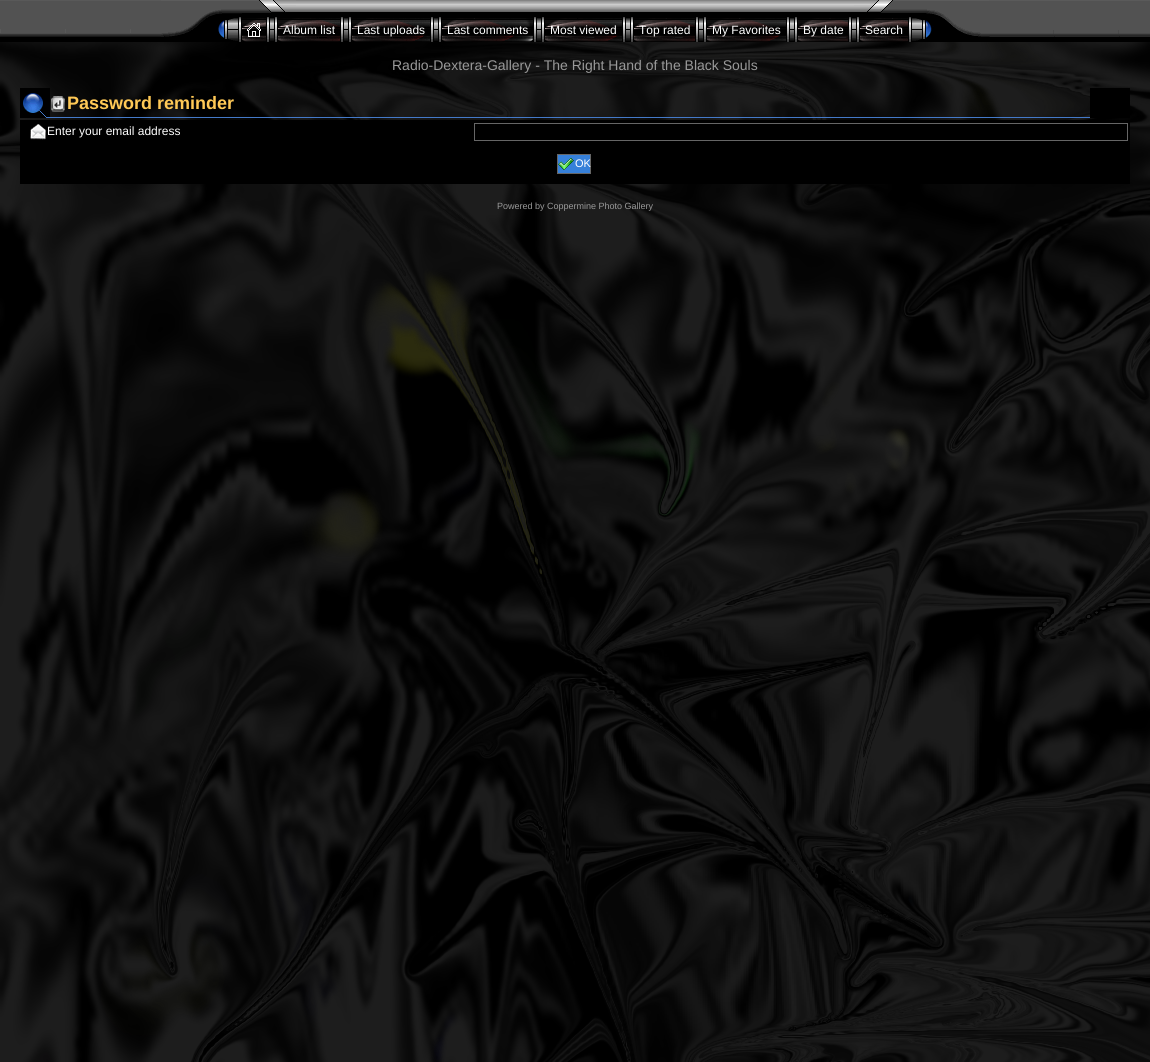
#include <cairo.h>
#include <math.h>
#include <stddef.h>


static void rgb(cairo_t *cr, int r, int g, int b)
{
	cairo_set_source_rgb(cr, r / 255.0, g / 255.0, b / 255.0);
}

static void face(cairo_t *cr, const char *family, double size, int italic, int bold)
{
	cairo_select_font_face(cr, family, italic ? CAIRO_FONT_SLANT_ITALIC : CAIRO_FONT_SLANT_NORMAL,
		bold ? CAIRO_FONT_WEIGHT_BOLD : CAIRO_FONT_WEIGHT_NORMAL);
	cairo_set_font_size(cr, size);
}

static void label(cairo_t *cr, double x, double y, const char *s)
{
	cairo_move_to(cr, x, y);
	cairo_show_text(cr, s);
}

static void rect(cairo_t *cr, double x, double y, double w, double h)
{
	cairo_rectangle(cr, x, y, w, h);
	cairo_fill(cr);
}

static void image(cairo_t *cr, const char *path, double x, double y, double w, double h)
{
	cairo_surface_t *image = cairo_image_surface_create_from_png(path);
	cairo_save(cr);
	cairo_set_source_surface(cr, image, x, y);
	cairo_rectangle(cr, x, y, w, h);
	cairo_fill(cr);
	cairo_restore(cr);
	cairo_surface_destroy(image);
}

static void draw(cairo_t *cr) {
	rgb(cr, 29, 29, 29);
	cairo_paint(cr);
	image(cr, "image0.png", 0, 17, 1150, 1045);
	image(cr, "image1.png", 0, 0, 161, 42);
	image(cr, "image2.png", 161, 0, 135, 17);
	image(cr, "image3.png", 296, 0, 558, 17);
	image(cr, "image4.png", 854, 0, 135, 17);
	image(cr, "image5.png", 161, 17, 55, 25);
	image(cr, "image6.png", 216, 17, 25, 25);
	image(cr, "image7.png", 242, 18, 24, 24);
	image(cr, "image8.png", 247, 23, 14, 14);
	image(cr, "image9.png", 267, 17, 10, 25);
	image(cr, "image10.png", 278, 17, 62, 25);
	face(cr, "Liberation Sans", 12, 0, 0);
	rgb(cr, 255, 255, 255);
	label(cr, 283, 34, "Album list");
	image(cr, "image9.png", 341, 17, 10, 25);
	image(cr, "image11.png", 352, 17, 78, 25);
	label(cr, 357, 34, "Last uploads");
	image(cr, "image12.png", 430, 17, 12, 25);
	image(cr, "image13.png", 442, 17, 91, 25);
	label(cr, 447, 34, "Last comments");
	image(cr, "image12.png", 533, 17, 12, 25);
	image(cr, "image14.png", 545, 17, 77, 25);
	label(cr, 550, 34, "Most viewed");
	image(cr, "image12.png", 622, 17, 12, 25);
	image(cr, "image15.png", 634, 17, 61, 25);
	label(cr, 639, 34, "Top rated");
	image(cr, "image12.png", 695, 17, 12, 25);
	image(cr, "image16.png", 707, 17, 79, 25);
	label(cr, 712, 34, "My Favorites");
	image(cr, "image12.png", 786, 17, 12, 25);
	image(cr, "image17.png", 798, 17, 50, 25);
	label(cr, 803, 34, "By date");
	image(cr, "image12.png", 848, 17, 12, 25);
	image(cr, "image18.png", 860, 17, 48, 25);
	label(cr, 865, 34, "Search");
	image(cr, "image19.png", 908, 17, 26, 25);
	image(cr, "image20.png", 934, 17, 55, 25);
	image(cr, "image21.png", 989, 0, 161, 42);
	face(cr, "Liberation Sans", 14, 0, 0);
	rgb(cr, 153, 153, 153);
	label(cr, 392, 70, "Radio-Dextera-Gallery - The Right Hand of the Black Souls");
	image(cr, "image22.png", 20, 88, 30, 30);
	rgb(cr, 68, 122, 201);
	rect(cr, 50, 117, 1040, 1);
	image(cr, "image23.png", 51, 96, 14, 16);
	face(cr, "Liberation Sans", 18, 0, 1);
	rgb(cr, 255, 201, 86);
	label(cr, 67, 109, "Password reminder");
	rgb(cr, 0, 0, 0);
	rect(cr, 1090, 88, 40, 30);
	rect(cr, 20, 120, 1110, 64);
	image(cr, "image24.png", 30, 124, 16, 16);
	face(cr, "Liberation Sans", 12, 0, 0);
	rgb(cr, 255, 255, 255);
	label(cr, 47, 135, "Enter your email address");
	cairo_rectangle(cr, 474.5, 123.5, 653, 17);
	rgb(cr, 102, 102, 102);
	cairo_set_line_width(cr, 1);
	cairo_stroke(cr);
	rgb(cr, 54, 128, 217);
	cairo_rectangle(cr, 557.5, 154.5, 33, 19);
	cairo_fill_preserve(cr);
	rgb(cr, 102, 102, 102);
	cairo_stroke(cr);
	image(cr, "image25.png", 558, 158, 16, 12);
	face(cr, "Liberation Sans", 11, 0, 0);
	rgb(cr, 255, 255, 255);
	label(cr, 575, 167, "OK");
	face(cr, "Liberation Sans", 9, 0, 0);
	rgb(cr, 153, 153, 153);
	label(cr, 497, 209, "Powered by Coppermine Photo Gallery");
}

int main(void) {
	cairo_surface_t *surface = cairo_image_surface_create(CAIRO_FORMAT_RGB24, 1150, 1062);
	cairo_t *cr = cairo_create(surface);
	cairo_font_options_t *options = cairo_font_options_create();
	cairo_font_options_set_hint_metrics(options, CAIRO_HINT_METRICS_OFF);
	cairo_font_options_set_hint_style(options, CAIRO_HINT_STYLE_NONE);
	cairo_set_font_options(cr, options);
	cairo_set_miter_limit(cr, 4);
	draw(cr);
	cairo_surface_write_to_png(surface, "render.png");
	cairo_font_options_destroy(options);
	cairo_destroy(cr);
	cairo_surface_destroy(surface);
	return 0;
}
